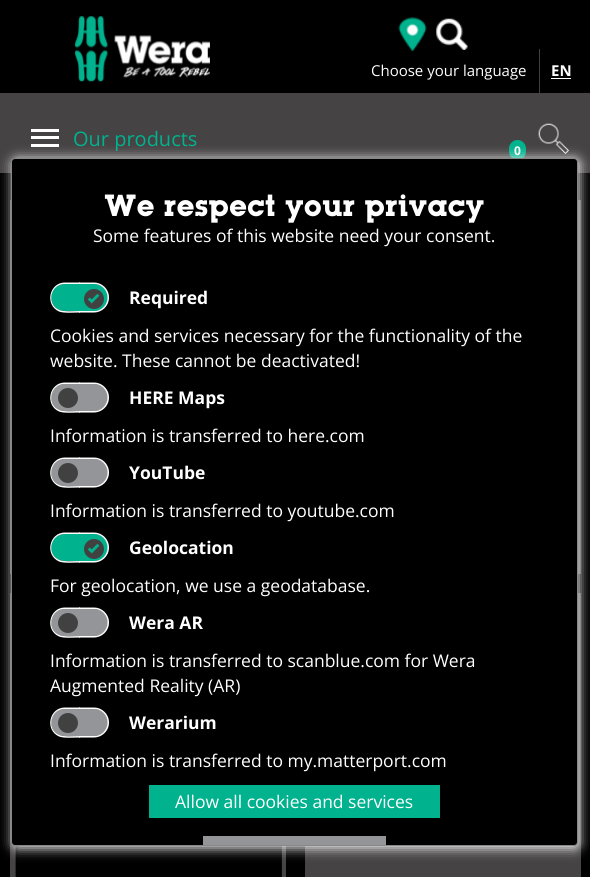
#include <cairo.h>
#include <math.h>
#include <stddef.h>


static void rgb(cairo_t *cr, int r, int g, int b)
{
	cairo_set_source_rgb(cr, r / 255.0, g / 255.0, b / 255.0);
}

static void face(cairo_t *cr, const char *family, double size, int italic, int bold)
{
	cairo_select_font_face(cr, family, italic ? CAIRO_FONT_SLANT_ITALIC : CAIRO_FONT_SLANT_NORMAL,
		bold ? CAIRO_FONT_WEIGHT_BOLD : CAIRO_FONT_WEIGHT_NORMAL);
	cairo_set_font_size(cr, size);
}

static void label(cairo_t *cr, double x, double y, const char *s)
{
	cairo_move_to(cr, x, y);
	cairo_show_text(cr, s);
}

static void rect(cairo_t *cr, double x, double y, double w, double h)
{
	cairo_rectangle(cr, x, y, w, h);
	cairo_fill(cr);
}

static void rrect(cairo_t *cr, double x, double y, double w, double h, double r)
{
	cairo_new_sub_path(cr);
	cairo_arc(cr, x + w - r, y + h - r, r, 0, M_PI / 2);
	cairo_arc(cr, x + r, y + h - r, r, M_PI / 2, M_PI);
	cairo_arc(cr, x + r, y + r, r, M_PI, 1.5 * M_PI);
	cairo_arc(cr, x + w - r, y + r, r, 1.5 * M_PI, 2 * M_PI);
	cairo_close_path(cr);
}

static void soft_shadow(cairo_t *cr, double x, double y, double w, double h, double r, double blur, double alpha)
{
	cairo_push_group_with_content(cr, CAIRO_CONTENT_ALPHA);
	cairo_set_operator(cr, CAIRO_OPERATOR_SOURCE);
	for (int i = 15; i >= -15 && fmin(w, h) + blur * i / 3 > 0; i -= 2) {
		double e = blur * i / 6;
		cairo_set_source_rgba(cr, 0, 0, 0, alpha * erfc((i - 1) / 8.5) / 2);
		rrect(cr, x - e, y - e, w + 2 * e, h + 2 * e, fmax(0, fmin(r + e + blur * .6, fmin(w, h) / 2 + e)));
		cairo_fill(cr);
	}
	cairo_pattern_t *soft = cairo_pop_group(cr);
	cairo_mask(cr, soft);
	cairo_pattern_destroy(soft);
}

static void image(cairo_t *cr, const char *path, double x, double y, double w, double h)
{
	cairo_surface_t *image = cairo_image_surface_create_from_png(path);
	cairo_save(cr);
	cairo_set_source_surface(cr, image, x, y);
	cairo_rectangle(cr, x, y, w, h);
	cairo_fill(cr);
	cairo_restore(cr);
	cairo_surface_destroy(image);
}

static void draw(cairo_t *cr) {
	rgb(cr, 0, 0, 0);
	cairo_paint(cr);
	image(cr, "image0.png", 75, 16, 135, 66);
	image(cr, "image1.png", 398, 17, 29, 35);
	image(cr, "image2.png", 436, 18, 32, 32);
	rgb(cr, 65, 65, 65);
	rect(cr, 539, 49, 1, 44);
	face(cr, "Open Sans", 15, 0, 0);
	rgb(cr, 255, 255, 255);
	label(cr, 371, 76, "Choose your language");
	face(cr, "Open Sans", 15, 0, 1);
	label(cr, 551, 76, "EN");
	rect(cr, 551, 78, 20, 1);
	rgb(cr, 69, 67, 68);
	rect(cr, 0, 93, 590, 80);
	rgb(cr, 255, 255, 255);
	rect(cr, 31, 129, 28, 3);
	rect(cr, 31, 136, 28, 3);
	rect(cr, 31, 144, 28, 3);
	face(cr, "Open Sans", 20, 0, 0);
	rgb(cr, 0, 178, 141);
	label(cr, 73, 146, "Our products");
	rrect(cr, 509, 140, 17, 20, 8.5);
	cairo_fill(cr);
	face(cr, "Open Sans", 12, 0, 1);
	rgb(cr, 255, 255, 255);
	label(cr, 514, 155, "0");
	image(cr, "image3.png", 538, 123, 31, 31);
	rgb(cr, 69, 67, 68);
	rect(cr, 10, 200, 1, 374);
	rect(cr, 578, 200, 3, 374);
	rect(cr, 10, 593, 276, 284);
	image(cr, "image4.png", 15, 846, 267, 31);
	rect(cr, 305, 593, 276, 284);
	rgb(cr, 255, 255, 255);
	soft_shadow(cr, 13, 159, 566, 689, 4, 6, 1);
	rgb(cr, 0, 0, 0);
	rrect(cr, 11.5, 158.5, 566, 687, 3.5);
	cairo_fill_preserve(cr);
	rgb(cr, 136, 136, 136);
	cairo_set_line_width(cr, 1);
	cairo_stroke(cr);
	face(cr, "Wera", 30, 0, 1);
	rgb(cr, 255, 255, 255);
	label(cr, 104, 216, "We respect your privacy");
	face(cr, "Open Sans", 17.5, 0, 0);
	label(cr, 93, 242, "Some features of this website need your consent.");
	rgb(cr, 0, 178, 141);
	cairo_new_path(cr);
	cairo_move_to(cr, 64.5, 284);
	cairo_line_to(cr, 80, 284);
	cairo_line_to(cr, 80, 311);
	cairo_line_to(cr, 64.5, 311);
	cairo_curve_to(cr, 57, 311, 51, 305, 51, 297.5);
	cairo_curve_to(cr, 51, 290, 57, 284, 64.5, 284);
	cairo_close_path(cr);
	cairo_fill(cr);
	rgb(cr, 255, 255, 255);
	cairo_set_fill_rule(cr, CAIRO_FILL_RULE_EVEN_ODD);
	cairo_new_path(cr);
	cairo_move_to(cr, 65, 282.5);
	cairo_line_to(cr, 80, 282.5);
	cairo_line_to(cr, 80, 312.5);
	cairo_curve_to(cr, 74.5, 312.5, 64, 313.5, 59, 311.5);
	cairo_curve_to(cr, 44.5, 305, 49, 282.5, 65, 282.5);
	cairo_close_path(cr);
	cairo_move_to(cr, 65, 284);
	cairo_line_to(cr, 80, 284);
	cairo_line_to(cr, 80, 311);
	cairo_curve_to(cr, 74.5, 311, 64, 312, 59.5, 310);
	cairo_curve_to(cr, 46, 304.5, 50, 284, 65, 284);
	cairo_close_path(cr);
	cairo_fill(cr);
	rgb(cr, 0, 178, 141);
	cairo_new_path(cr);
	cairo_move_to(cr, 79, 284);
	cairo_line_to(cr, 94.5, 284);
	cairo_curve_to(cr, 102, 284, 108, 290, 108, 297.5);
	cairo_curve_to(cr, 108, 305, 102, 311, 94.5, 311);
	cairo_line_to(cr, 79, 311);
	cairo_close_path(cr);
	cairo_fill(cr);
	rgb(cr, 255, 255, 255);
	cairo_new_path(cr);
	cairo_move_to(cr, 79, 282.5);
	cairo_line_to(cr, 94, 282.5);
	cairo_curve_to(cr, 102, 282.5, 109, 289, 109, 297.5);
	cairo_curve_to(cr, 109, 306, 102, 312.5, 94, 312.5);
	cairo_line_to(cr, 79, 312.5);
	cairo_close_path(cr);
	cairo_move_to(cr, 79, 284);
	cairo_line_to(cr, 94, 284);
	cairo_curve_to(cr, 101.5, 284, 107.5, 290, 107.5, 297.5);
	cairo_curve_to(cr, 107.5, 305, 101.5, 311, 94, 311);
	cairo_line_to(cr, 79, 311);
	cairo_close_path(cr);
	cairo_fill(cr);
	rgb(cr, 65, 65, 65);
	cairo_arc(cr, 94, 299, 10, 0, 2 * M_PI);
	cairo_fill(cr);
	image(cr, "image5.png", 87, 293, 13, 11);
	face(cr, "Open Sans", 17.5, 0, 1);
	rgb(cr, 255, 255, 255);
	label(cr, 129, 304, "Required");
	face(cr, "Open Sans", 17.5, 0, 0);
	label(cr, 50, 342, "Cookies and services necessary for the functionality of the");
	label(cr, 50, 367, "website. These cannot be deactivated!");
	rgb(cr, 147, 149, 152);
	cairo_new_path(cr);
	cairo_move_to(cr, 79, 384);
	cairo_line_to(cr, 94.5, 384);
	cairo_curve_to(cr, 102, 384, 108, 390, 108, 397.5);
	cairo_curve_to(cr, 108, 405, 102, 411, 94.5, 411);
	cairo_line_to(cr, 79, 411);
	cairo_close_path(cr);
	cairo_fill(cr);
	rgb(cr, 255, 255, 255);
	cairo_new_path(cr);
	cairo_move_to(cr, 79, 382.5);
	cairo_line_to(cr, 94, 382.5);
	cairo_curve_to(cr, 102, 382.5, 109, 389, 109, 397.5);
	cairo_curve_to(cr, 109, 406, 102, 412.5, 94, 412.5);
	cairo_line_to(cr, 79, 412.5);
	cairo_close_path(cr);
	cairo_move_to(cr, 79, 384);
	cairo_line_to(cr, 94, 384);
	cairo_curve_to(cr, 101.5, 384, 107.5, 390, 107.5, 397.5);
	cairo_curve_to(cr, 107.5, 405, 101.5, 411, 94, 411);
	cairo_line_to(cr, 79, 411);
	cairo_close_path(cr);
	cairo_fill(cr);
	rgb(cr, 147, 149, 152);
	cairo_new_path(cr);
	cairo_move_to(cr, 64.5, 384);
	cairo_line_to(cr, 80, 384);
	cairo_line_to(cr, 80, 411);
	cairo_line_to(cr, 64.5, 411);
	cairo_curve_to(cr, 57, 411, 51, 405, 51, 397.5);
	cairo_curve_to(cr, 51, 390, 57, 384, 64.5, 384);
	cairo_close_path(cr);
	cairo_fill(cr);
	rgb(cr, 255, 255, 255);
	cairo_new_path(cr);
	cairo_move_to(cr, 65, 382.5);
	cairo_line_to(cr, 80, 382.5);
	cairo_line_to(cr, 80, 412.5);
	cairo_curve_to(cr, 74.5, 412.5, 64, 413.5, 59, 411.5);
	cairo_curve_to(cr, 44.5, 405, 49, 382.5, 65, 382.5);
	cairo_close_path(cr);
	cairo_move_to(cr, 65, 384);
	cairo_line_to(cr, 80, 384);
	cairo_line_to(cr, 80, 411);
	cairo_curve_to(cr, 74.5, 411, 64, 412, 59.5, 410);
	cairo_curve_to(cr, 46, 404.5, 50, 384, 65, 384);
	cairo_close_path(cr);
	cairo_fill(cr);
	rgb(cr, 65, 65, 65);
	cairo_arc(cr, 68, 398, 10, 0, 2 * M_PI);
	cairo_fill(cr);
	face(cr, "Open Sans", 17.5, 0, 1);
	rgb(cr, 255, 255, 255);
	label(cr, 129, 404, "HERE Maps");
	face(cr, "Open Sans", 17.5, 0, 0);
	label(cr, 50, 442, "Information is transferred to here.com");
	rgb(cr, 147, 149, 152);
	cairo_new_path(cr);
	cairo_move_to(cr, 79, 459);
	cairo_line_to(cr, 94.5, 459);
	cairo_curve_to(cr, 102, 459, 108, 465, 108, 472.5);
	cairo_curve_to(cr, 108, 480, 102, 486, 94.5, 486);
	cairo_line_to(cr, 79, 486);
	cairo_close_path(cr);
	cairo_fill(cr);
	rgb(cr, 255, 255, 255);
	cairo_new_path(cr);
	cairo_move_to(cr, 79, 457.5);
	cairo_line_to(cr, 94, 457.5);
	cairo_curve_to(cr, 102, 457.5, 109, 464, 109, 472.5);
	cairo_curve_to(cr, 109, 481, 102, 487.5, 94, 487.5);
	cairo_line_to(cr, 79, 487.5);
	cairo_close_path(cr);
	cairo_move_to(cr, 79, 459);
	cairo_line_to(cr, 94, 459);
	cairo_curve_to(cr, 101.5, 459, 107.5, 465, 107.5, 472.5);
	cairo_curve_to(cr, 107.5, 480, 101.5, 486, 94, 486);
	cairo_line_to(cr, 79, 486);
	cairo_close_path(cr);
	cairo_fill(cr);
	rgb(cr, 147, 149, 152);
	cairo_new_path(cr);
	cairo_move_to(cr, 64.5, 459);
	cairo_line_to(cr, 80, 459);
	cairo_line_to(cr, 80, 486);
	cairo_line_to(cr, 64.5, 486);
	cairo_curve_to(cr, 57, 486, 51, 480, 51, 472.5);
	cairo_curve_to(cr, 51, 465, 57, 459, 64.5, 459);
	cairo_close_path(cr);
	cairo_fill(cr);
	rgb(cr, 255, 255, 255);
	cairo_new_path(cr);
	cairo_move_to(cr, 65, 457.5);
	cairo_line_to(cr, 80, 457.5);
	cairo_line_to(cr, 80, 487.5);
	cairo_curve_to(cr, 74.5, 487.5, 64, 488.5, 59, 486.5);
	cairo_curve_to(cr, 44.5, 480, 49, 457.5, 65, 457.5);
	cairo_close_path(cr);
	cairo_move_to(cr, 65, 459);
	cairo_line_to(cr, 80, 459);
	cairo_line_to(cr, 80, 486);
	cairo_curve_to(cr, 74.5, 486, 64, 487, 59.5, 485);
	cairo_curve_to(cr, 46, 479.5, 50, 459, 65, 459);
	cairo_close_path(cr);
	cairo_fill(cr);
	rgb(cr, 65, 65, 65);
	cairo_arc(cr, 68, 473, 10, 0, 2 * M_PI);
	cairo_fill(cr);
	face(cr, "Open Sans", 17.5, 0, 1);
	rgb(cr, 255, 255, 255);
	label(cr, 129, 479, "YouTube");
	face(cr, "Open Sans", 17.5, 0, 0);
	label(cr, 50, 517, "Information is transferred to youtube.com");
	rgb(cr, 0, 178, 141);
	cairo_new_path(cr);
	cairo_move_to(cr, 64.5, 534);
	cairo_line_to(cr, 80, 534);
	cairo_line_to(cr, 80, 561);
	cairo_line_to(cr, 64.5, 561);
	cairo_curve_to(cr, 57, 561, 51, 555, 51, 547.5);
	cairo_curve_to(cr, 51, 540, 57, 534, 64.5, 534);
	cairo_close_path(cr);
	cairo_fill(cr);
	rgb(cr, 255, 255, 255);
	cairo_new_path(cr);
	cairo_move_to(cr, 65, 532.5);
	cairo_line_to(cr, 80, 532.5);
	cairo_line_to(cr, 80, 562.5);
	cairo_curve_to(cr, 74.5, 562.5, 64, 563.5, 59, 561.5);
	cairo_curve_to(cr, 44.5, 555, 49, 532.5, 65, 532.5);
	cairo_close_path(cr);
	cairo_move_to(cr, 65, 534);
	cairo_line_to(cr, 80, 534);
	cairo_line_to(cr, 80, 561);
	cairo_curve_to(cr, 74.5, 561, 64, 562, 59.5, 560);
	cairo_curve_to(cr, 46, 554.5, 50, 534, 65, 534);
	cairo_close_path(cr);
	cairo_fill(cr);
	rgb(cr, 0, 178, 141);
	cairo_new_path(cr);
	cairo_move_to(cr, 79, 534);
	cairo_line_to(cr, 94.5, 534);
	cairo_curve_to(cr, 102, 534, 108, 540, 108, 547.5);
	cairo_curve_to(cr, 108, 555, 102, 561, 94.5, 561);
	cairo_line_to(cr, 79, 561);
	cairo_close_path(cr);
	cairo_fill(cr);
	rgb(cr, 255, 255, 255);
	cairo_new_path(cr);
	cairo_move_to(cr, 79, 532.5);
	cairo_line_to(cr, 94, 532.5);
	cairo_curve_to(cr, 102, 532.5, 109, 539, 109, 547.5);
	cairo_curve_to(cr, 109, 556, 102, 562.5, 94, 562.5);
	cairo_line_to(cr, 79, 562.5);
	cairo_close_path(cr);
	cairo_move_to(cr, 79, 534);
	cairo_line_to(cr, 94, 534);
	cairo_curve_to(cr, 101.5, 534, 107.5, 540, 107.5, 547.5);
	cairo_curve_to(cr, 107.5, 555, 101.5, 561, 94, 561);
	cairo_line_to(cr, 79, 561);
	cairo_close_path(cr);
	cairo_fill(cr);
	rgb(cr, 65, 65, 65);
	cairo_arc(cr, 94, 549, 10, 0, 2 * M_PI);
	cairo_fill(cr);
	image(cr, "image5.png", 87, 543, 13, 11);
	face(cr, "Open Sans", 17.5, 0, 1);
	rgb(cr, 255, 255, 255);
	label(cr, 129, 554, "Geolocation");
	face(cr, "Open Sans", 17.5, 0, 0);
	label(cr, 50, 592, "For geolocation, we use a geodatabase.");
	rgb(cr, 147, 149, 152);
	cairo_new_path(cr);
	cairo_move_to(cr, 79, 609);
	cairo_line_to(cr, 94.5, 609);
	cairo_curve_to(cr, 102, 609, 108, 615, 108, 622.5);
	cairo_curve_to(cr, 108, 630, 102, 636, 94.5, 636);
	cairo_line_to(cr, 79, 636);
	cairo_close_path(cr);
	cairo_fill(cr);
	rgb(cr, 255, 255, 255);
	cairo_new_path(cr);
	cairo_move_to(cr, 79, 607.5);
	cairo_line_to(cr, 94, 607.5);
	cairo_curve_to(cr, 102, 607.5, 109, 614, 109, 622.5);
	cairo_curve_to(cr, 109, 631, 102, 637.5, 94, 637.5);
	cairo_line_to(cr, 79, 637.5);
	cairo_close_path(cr);
	cairo_move_to(cr, 79, 609);
	cairo_line_to(cr, 94, 609);
	cairo_curve_to(cr, 101.5, 609, 107.5, 615, 107.5, 622.5);
	cairo_curve_to(cr, 107.5, 630, 101.5, 636, 94, 636);
	cairo_line_to(cr, 79, 636);
	cairo_close_path(cr);
	cairo_fill(cr);
	rgb(cr, 147, 149, 152);
	cairo_new_path(cr);
	cairo_move_to(cr, 64.5, 609);
	cairo_line_to(cr, 80, 609);
	cairo_line_to(cr, 80, 636);
	cairo_line_to(cr, 64.5, 636);
	cairo_curve_to(cr, 57, 636, 51, 630, 51, 622.5);
	cairo_curve_to(cr, 51, 615, 57, 609, 64.5, 609);
	cairo_close_path(cr);
	cairo_fill(cr);
	rgb(cr, 255, 255, 255);
	cairo_new_path(cr);
	cairo_move_to(cr, 65, 607.5);
	cairo_line_to(cr, 80, 607.5);
	cairo_line_to(cr, 80, 637.5);
	cairo_curve_to(cr, 74.5, 637.5, 64, 638.5, 59, 636.5);
	cairo_curve_to(cr, 44.5, 630, 49, 607.5, 65, 607.5);
	cairo_close_path(cr);
	cairo_move_to(cr, 65, 609);
	cairo_line_to(cr, 80, 609);
	cairo_line_to(cr, 80, 636);
	cairo_curve_to(cr, 74.5, 636, 64, 637, 59.5, 635);
	cairo_curve_to(cr, 46, 629.5, 50, 609, 65, 609);
	cairo_close_path(cr);
	cairo_fill(cr);
	rgb(cr, 65, 65, 65);
	cairo_arc(cr, 68, 623, 10, 0, 2 * M_PI);
	cairo_fill(cr);
	face(cr, "Open Sans", 17.5, 0, 1);
	rgb(cr, 255, 255, 255);
	label(cr, 129, 629, "Wera AR");
	face(cr, "Open Sans", 17.5, 0, 0);
	label(cr, 50, 667, "Information is transferred to scanblue.com for Wera");
	label(cr, 50, 692, "Augmented Reality (AR)");
	rgb(cr, 147, 149, 152);
	cairo_new_path(cr);
	cairo_move_to(cr, 79, 709);
	cairo_line_to(cr, 94.5, 709);
	cairo_curve_to(cr, 102, 709, 108, 715, 108, 722.5);
	cairo_curve_to(cr, 108, 730, 102, 736, 94.5, 736);
	cairo_line_to(cr, 79, 736);
	cairo_close_path(cr);
	cairo_fill(cr);
	rgb(cr, 255, 255, 255);
	cairo_new_path(cr);
	cairo_move_to(cr, 79, 707.5);
	cairo_line_to(cr, 94, 707.5);
	cairo_curve_to(cr, 102, 707.5, 109, 714, 109, 722.5);
	cairo_curve_to(cr, 109, 731, 102, 737.5, 94, 737.5);
	cairo_line_to(cr, 79, 737.5);
	cairo_close_path(cr);
	cairo_move_to(cr, 79, 709);
	cairo_line_to(cr, 94, 709);
	cairo_curve_to(cr, 101.5, 709, 107.5, 715, 107.5, 722.5);
	cairo_curve_to(cr, 107.5, 730, 101.5, 736, 94, 736);
	cairo_line_to(cr, 79, 736);
	cairo_close_path(cr);
	cairo_fill(cr);
	rgb(cr, 147, 149, 152);
	cairo_new_path(cr);
	cairo_move_to(cr, 64.5, 709);
	cairo_line_to(cr, 80, 709);
	cairo_line_to(cr, 80, 736);
	cairo_line_to(cr, 64.5, 736);
	cairo_curve_to(cr, 57, 736, 51, 730, 51, 722.5);
	cairo_curve_to(cr, 51, 715, 57, 709, 64.5, 709);
	cairo_close_path(cr);
	cairo_fill(cr);
	rgb(cr, 255, 255, 255);
	cairo_new_path(cr);
	cairo_move_to(cr, 65, 707.5);
	cairo_line_to(cr, 80, 707.5);
	cairo_line_to(cr, 80, 737.5);
	cairo_curve_to(cr, 74.5, 737.5, 64, 738.5, 59, 736.5);
	cairo_curve_to(cr, 44.5, 730, 49, 707.5, 65, 707.5);
	cairo_close_path(cr);
	cairo_move_to(cr, 65, 709);
	cairo_line_to(cr, 80, 709);
	cairo_line_to(cr, 80, 736);
	cairo_curve_to(cr, 74.5, 736, 64, 737, 59.5, 735);
	cairo_curve_to(cr, 46, 729.5, 50, 709, 65, 709);
	cairo_close_path(cr);
	cairo_fill(cr);
	rgb(cr, 65, 65, 65);
	cairo_arc(cr, 68, 723, 10, 0, 2 * M_PI);
	cairo_fill(cr);
	face(cr, "Open Sans", 17.5, 0, 1);
	rgb(cr, 255, 255, 255);
	label(cr, 129, 729, "Werarium");
	face(cr, "Open Sans", 17.5, 0, 0);
	label(cr, 50, 767, "Information is transferred to my.matterport.com");
	rgb(cr, 0, 178, 141);
	rect(cr, 149, 785, 291, 33);
	rgb(cr, 255, 255, 255);
	label(cr, 175, 808, "Allow all cookies and services");
	rgb(cr, 147, 149, 152);
	rect(cr, 203, 836, 183, 9);
}

int main(void) {
	cairo_surface_t *surface = cairo_image_surface_create(CAIRO_FORMAT_RGB24, 590, 877);
	cairo_t *cr = cairo_create(surface);
	cairo_font_options_t *options = cairo_font_options_create();
	cairo_font_options_set_hint_metrics(options, CAIRO_HINT_METRICS_OFF);
	cairo_font_options_set_hint_style(options, CAIRO_HINT_STYLE_NONE);
	cairo_set_font_options(cr, options);
	cairo_set_miter_limit(cr, 4);
	draw(cr);
	cairo_surface_write_to_png(surface, "render.png");
	cairo_font_options_destroy(options);
	cairo_destroy(cr);
	cairo_surface_destroy(surface);
	return 0;
}
